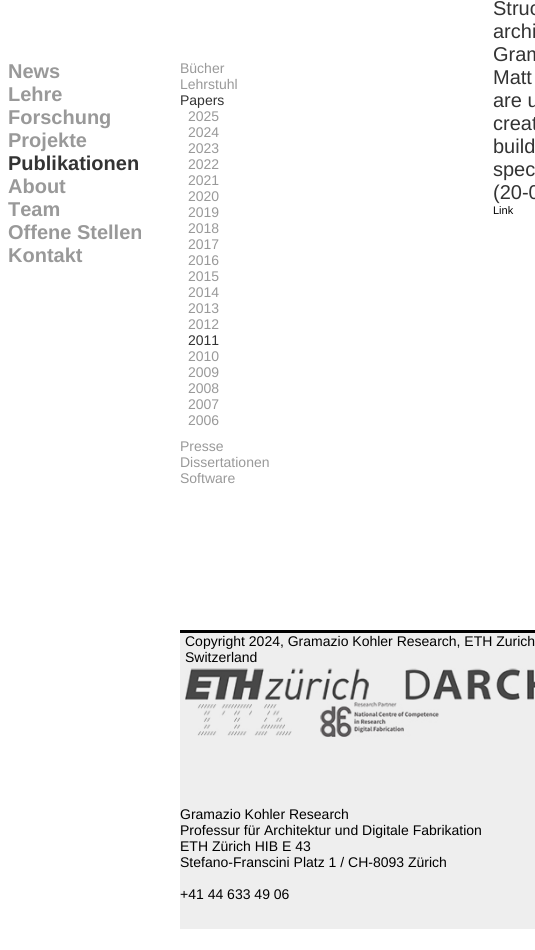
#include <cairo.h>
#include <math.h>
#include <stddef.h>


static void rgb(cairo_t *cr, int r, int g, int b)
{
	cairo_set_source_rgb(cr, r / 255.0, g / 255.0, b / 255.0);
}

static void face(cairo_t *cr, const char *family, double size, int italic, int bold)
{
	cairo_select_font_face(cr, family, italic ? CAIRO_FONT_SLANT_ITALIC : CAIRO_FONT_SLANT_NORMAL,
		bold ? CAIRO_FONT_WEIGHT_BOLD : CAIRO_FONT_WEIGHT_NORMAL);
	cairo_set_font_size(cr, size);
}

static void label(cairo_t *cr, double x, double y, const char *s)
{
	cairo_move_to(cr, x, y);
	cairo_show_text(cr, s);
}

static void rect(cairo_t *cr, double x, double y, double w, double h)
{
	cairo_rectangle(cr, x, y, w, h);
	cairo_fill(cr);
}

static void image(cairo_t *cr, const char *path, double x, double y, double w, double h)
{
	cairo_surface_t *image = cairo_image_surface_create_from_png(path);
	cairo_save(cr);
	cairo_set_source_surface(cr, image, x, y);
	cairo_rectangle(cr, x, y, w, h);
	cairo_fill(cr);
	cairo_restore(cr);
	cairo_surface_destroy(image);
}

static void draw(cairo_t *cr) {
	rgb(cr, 255, 255, 255);
	cairo_paint(cr);
	face(cr, "Liberation Sans", 20, 0, 1);
	rgb(cr, 153, 153, 153);
	label(cr, 8, 78, "News");
	label(cr, 8, 101, "Lehre");
	label(cr, 8, 124, "Forschung");
	label(cr, 8, 147, "Projekte");
	rgb(cr, 51, 51, 51);
	label(cr, 8, 170, "Publikationen");
	rgb(cr, 153, 153, 153);
	label(cr, 8, 193, "About");
	label(cr, 8, 216, "Team");
	label(cr, 8, 239, "Offene Stellen");
	label(cr, 8, 262, "Kontakt");
	face(cr, "Liberation Sans", 14, 0, 0);
	label(cr, 180, 73, "Bücher");
	label(cr, 180, 89, "Lehrstuhl");
	rgb(cr, 51, 51, 51);
	label(cr, 180, 105, "Papers");
	rgb(cr, 153, 153, 153);
	label(cr, 188, 121, "2025");
	label(cr, 188, 137, "2024");
	label(cr, 188, 153, "2023");
	label(cr, 188, 169, "2022");
	label(cr, 188, 185, "2021");
	label(cr, 188, 201, "2020");
	label(cr, 188, 217, "2019");
	label(cr, 188, 233, "2018");
	label(cr, 188, 249, "2017");
	label(cr, 188, 265, "2016");
	label(cr, 188, 281, "2015");
	label(cr, 188, 297, "2014");
	label(cr, 188, 313, "2013");
	label(cr, 188, 329, "2012");
	rgb(cr, 51, 51, 51);
	label(cr, 188, 345, "2011");
	rgb(cr, 153, 153, 153);
	label(cr, 188, 361, "2010");
	label(cr, 188, 377, "2009");
	label(cr, 188, 393, "2008");
	label(cr, 188, 409, "2007");
	label(cr, 188, 425, "2006");
	label(cr, 180, 451, "Presse");
	label(cr, 180, 467, "Dissertationen");
	label(cr, 180, 483, "Software");
	face(cr, "Liberation Sans", 20, 0, 0);
	rgb(cr, 51, 51, 51);
	label(cr, 493, 15, "Struc");
	label(cr, 493, 38, "archi");
	label(cr, 493, 61, "Gram");
	label(cr, 493, 84, "Matt");
	label(cr, 493, 107, "are u");
	label(cr, 493, 130, "creat");
	label(cr, 493, 153, "build");
	label(cr, 493, 176, "spec");
	label(cr, 493, 199, "(20-0");
	face(cr, "Liberation Sans", 11, 0, 0);
	rgb(cr, 0, 0, 0);
	label(cr, 493, 214, "Link");
	rgb(cr, 238, 238, 238);
	rect(cr, 180, 633, 355, 296);
	rgb(cr, 0, 0, 0);
	rect(cr, 180, 630, 355, 3);
	face(cr, "Liberation Sans", 14, 0, 0);
	label(cr, 185, 646, "Copyright 2024, Gramazio Kohler Research, ETH Zurich");
	label(cr, 185, 662, "Switzerland");
	image(cr, "image0.png", 185, 668, 184, 32);
	image(cr, "image1.png", 405, 668, 130, 32);
	image(cr, "image2.png", 197, 704, 95, 32);
	image(cr, "image3.png", 320, 702, 119, 35);
	label(cr, 180, 819, "Gramazio Kohler Research");
	label(cr, 180, 835, "Professur für Architektur und Digitale Fabrikation");
	label(cr, 180, 851, "ETH Zürich HIB E 43");
	label(cr, 180, 867, "Stefano-Franscini Platz 1 / CH-8093 Zürich");
	label(cr, 180, 899, "+41 44 633 49 06");
}

int main(void) {
	cairo_surface_t *surface = cairo_image_surface_create(CAIRO_FORMAT_RGB24, 535, 950);
	cairo_t *cr = cairo_create(surface);
	cairo_font_options_t *options = cairo_font_options_create();
	cairo_font_options_set_hint_metrics(options, CAIRO_HINT_METRICS_OFF);
	cairo_font_options_set_hint_style(options, CAIRO_HINT_STYLE_NONE);
	cairo_set_font_options(cr, options);
	cairo_set_miter_limit(cr, 4);
	draw(cr);
	cairo_surface_write_to_png(surface, "render.png");
	cairo_font_options_destroy(options);
	cairo_destroy(cr);
	cairo_surface_destroy(surface);
	return 0;
}
